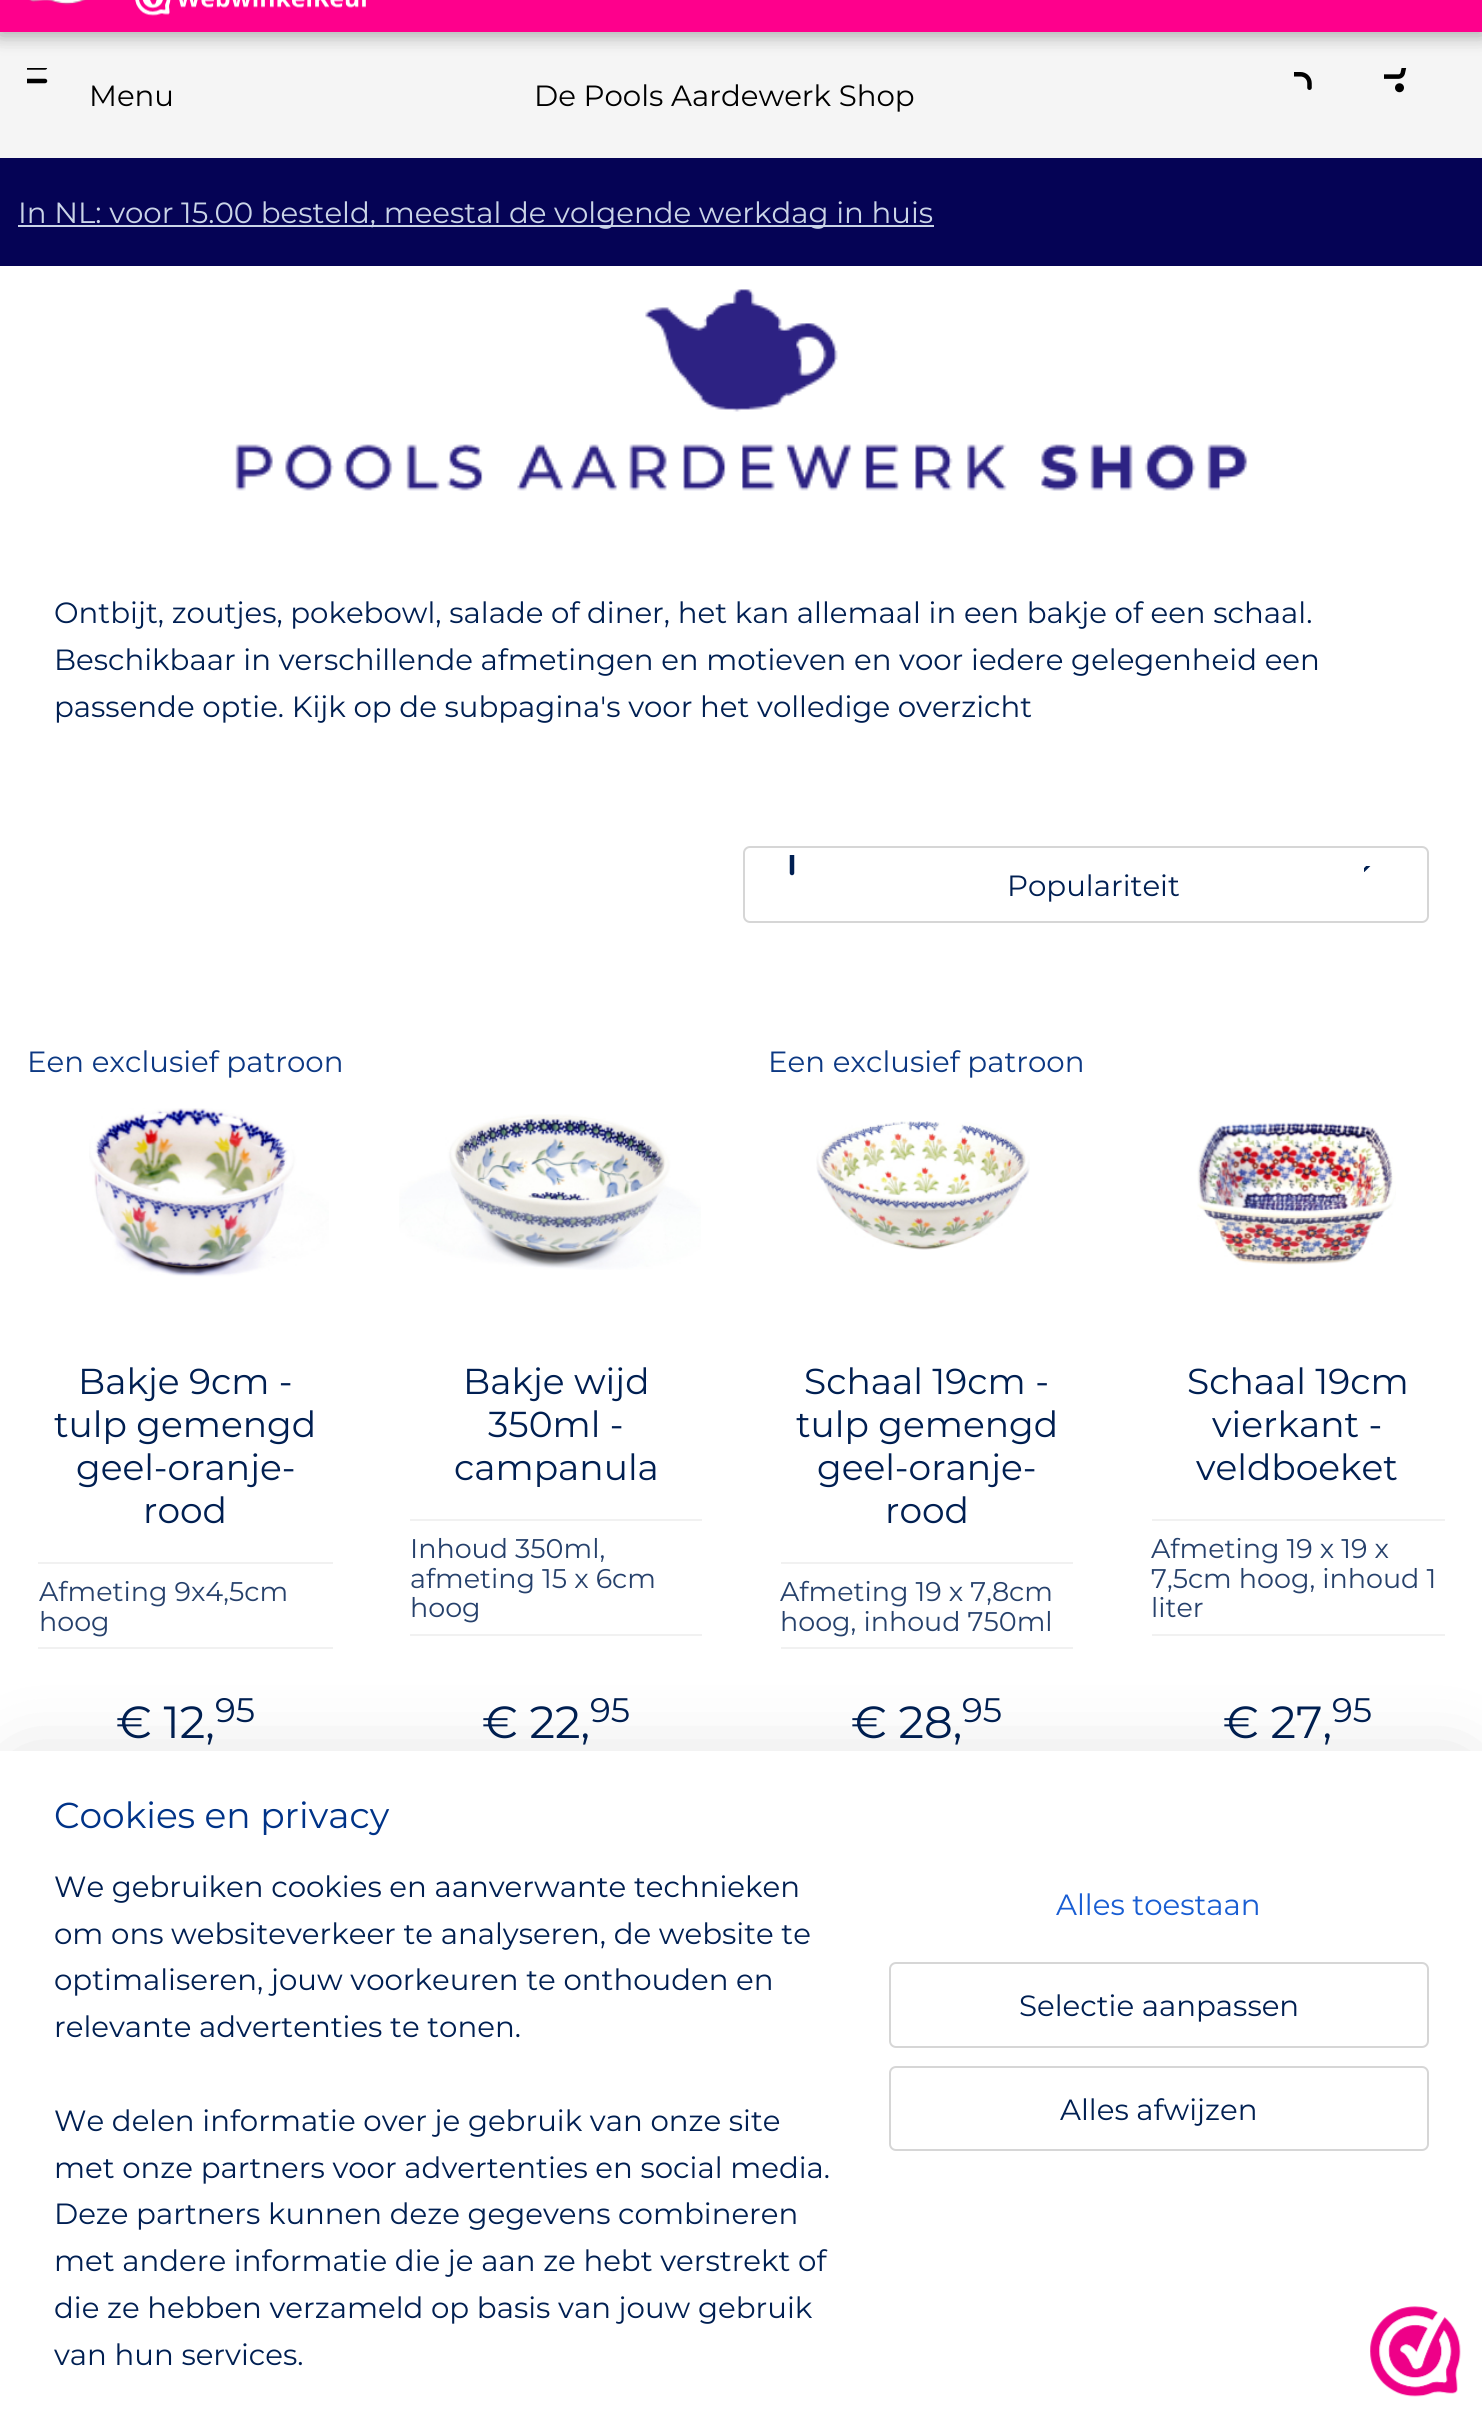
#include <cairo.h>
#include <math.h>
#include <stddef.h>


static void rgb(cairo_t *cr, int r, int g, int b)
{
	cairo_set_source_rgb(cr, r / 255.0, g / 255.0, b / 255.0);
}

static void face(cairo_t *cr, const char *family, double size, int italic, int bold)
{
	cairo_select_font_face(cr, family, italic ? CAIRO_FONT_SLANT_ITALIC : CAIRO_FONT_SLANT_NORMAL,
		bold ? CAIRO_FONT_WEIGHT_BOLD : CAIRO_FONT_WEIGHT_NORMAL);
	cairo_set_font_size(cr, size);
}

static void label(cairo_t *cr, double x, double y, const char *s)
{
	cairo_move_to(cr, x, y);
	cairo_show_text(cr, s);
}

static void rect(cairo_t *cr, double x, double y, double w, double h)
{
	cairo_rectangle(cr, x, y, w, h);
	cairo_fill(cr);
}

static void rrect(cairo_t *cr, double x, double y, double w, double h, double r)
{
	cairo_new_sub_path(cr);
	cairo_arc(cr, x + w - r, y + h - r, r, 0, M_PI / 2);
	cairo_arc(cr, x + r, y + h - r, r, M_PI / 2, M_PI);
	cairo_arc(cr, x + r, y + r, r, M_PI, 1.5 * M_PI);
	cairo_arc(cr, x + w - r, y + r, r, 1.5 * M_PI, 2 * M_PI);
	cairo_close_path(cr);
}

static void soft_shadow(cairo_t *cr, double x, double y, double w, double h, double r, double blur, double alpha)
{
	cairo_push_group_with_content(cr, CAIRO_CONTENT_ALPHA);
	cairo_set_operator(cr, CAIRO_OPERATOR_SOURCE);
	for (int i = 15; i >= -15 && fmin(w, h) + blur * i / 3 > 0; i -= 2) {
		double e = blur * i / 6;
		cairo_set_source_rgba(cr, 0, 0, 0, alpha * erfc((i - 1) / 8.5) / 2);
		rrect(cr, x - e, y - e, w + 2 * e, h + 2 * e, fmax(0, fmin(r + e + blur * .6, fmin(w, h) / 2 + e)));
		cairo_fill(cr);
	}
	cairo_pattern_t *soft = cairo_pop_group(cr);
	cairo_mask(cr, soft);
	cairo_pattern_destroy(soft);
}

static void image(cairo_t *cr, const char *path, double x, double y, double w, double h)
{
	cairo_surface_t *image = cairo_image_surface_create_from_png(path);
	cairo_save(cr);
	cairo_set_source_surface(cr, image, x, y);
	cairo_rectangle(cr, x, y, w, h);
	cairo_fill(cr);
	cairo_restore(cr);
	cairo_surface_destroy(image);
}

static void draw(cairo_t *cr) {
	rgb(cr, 255, 255, 255);
	cairo_paint(cr);
	rgb(cr, 245, 245, 245);
	rect(cr, 0, 32, 1482, 126);
	rgb(cr, 0, 0, 0);
	soft_shadow(cr, -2, -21, 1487, 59, 0, 7, 0.15);
	image(cr, "image3.png", 1384, 68, 23, 25);
	image(cr, "image4.png", 27, 68, 21, 16);
	soft_shadow(cr, 0, -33, 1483, 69, 0, 11, 0.15);
	rgb(cr, 254, 0, 140);
	rect(cr, 0, 0, 1482, 32);
	image(cr, "image0.png", 135, 0, 231, 16);
	image(cr, "image1.png", 29, 0, 57, 5);
	image(cr, "image2.png", 1294, 72, 18, 18);
	face(cr, "Montserrat", 29.25, 0, 0);
	rgb(cr, 0, 0, 0);
	label(cr, 89, 106, "Menu");
	label(cr, 534, 106, "De Pools Aardewerk Shop");
	rgb(cr, 5, 3, 85);
	rect(cr, 0, 158, 1482, 108);
	rgb(cr, 202, 212, 231);
	rect(cr, 18, 225, 916, 2);
	label(cr, 18, 223, "In NL: voor 15.00 besteld, meestal de volgende werkdag in huis");
	image(cr, "image5.png", 235, 289, 1013, 202);
	rgb(cr, 0, 31, 82);
	label(cr, 54, 623, "Ontbijt, zoutjes, pokebowl, salade of diner, het kan allemaal in een bakje of een schaal.");
	label(cr, 54, 670, "Beschikbaar in verschillende afmetingen en motieven en voor iedere gelegenheid een");
	label(cr, 54, 717, "passende optie. Kijk op de subpagina's voor het volledige overzicht");
	rrect(cr, 744, 847, 684, 75, 6);
	rgb(cr, 214, 214, 214);
	cairo_stroke(cr);
	image(cr, "image6.png", 789, 855, 6, 21);
	image(cr, "image7.png", 1364, 866, 7, 6);
	rgb(cr, 0, 31, 82);
	label(cr, 1007, 896, "Populariteit");
	rgb(cr, 12, 56, 131);
	label(cr, 27, 1072, "Een exclusief patroon");
	image(cr, "image8.png", 89, 1108, 240, 169);
	face(cr, "Montserrat", 36, 0, 0);
	rgb(cr, 0, 31, 82);
	label(cr, 78, 1394, "Bakje 9cm -");
	label(cr, 54, 1437, "tulp gemengd");
	label(cr, 76, 1480, "geel-oranje-");
	label(cr, 143, 1523, "rood");
	rgb(cr, 241, 241, 241);
	rect(cr, 38, 1562, 295, 2);
	rect(cr, 38, 1647, 295, 2);
	face(cr, "Montserrat", 27, 0, 0);
	rgb(cr, 38, 65, 108);
	label(cr, 39, 1601, "Afmeting 9x4,5cm");
	label(cr, 39, 1631, "hoog");
	face(cr, "Montserrat", 45, 0, 0);
	rgb(cr, 0, 31, 82);
	label(cr, 116, 1738, "€ 12,");
	face(cr, "Montserrat", 34, 0, 0);
	label(cr, 215, 1722, "95");
	image(cr, "image9.png", 399, 1114, 302, 156);
	face(cr, "Montserrat", 36, 0, 0);
	label(cr, 463, 1394, "Bakje wijd");
	label(cr, 488, 1437, "350ml -");
	label(cr, 454, 1480, "campanula");
	rgb(cr, 241, 241, 241);
	rect(cr, 410, 1519, 292, 2);
	rect(cr, 410, 1634, 292, 2);
	face(cr, "Montserrat", 27, 0, 0);
	rgb(cr, 38, 65, 108);
	label(cr, 410, 1558, "Inhoud 350ml,");
	label(cr, 410, 1588, "afmeting 15 x 6cm");
	label(cr, 410, 1617, "hoog");
	face(cr, "Montserrat", 45, 0, 0);
	rgb(cr, 0, 31, 82);
	label(cr, 482, 1738, "€ 22,");
	face(cr, "Montserrat", 34, 0, 0);
	label(cr, 590, 1722, "95");
	face(cr, "Montserrat", 29.25, 0, 0);
	rgb(cr, 12, 56, 131);
	label(cr, 768, 1072, "Een exclusief patroon");
	image(cr, "image10.png", 816, 1121, 214, 129);
	face(cr, "Montserrat", 36, 0, 0);
	rgb(cr, 0, 31, 82);
	label(cr, 804, 1394, "Schaal 19cm -");
	label(cr, 796, 1437, "tulp gemengd");
	label(cr, 817, 1480, "geel-oranje-");
	label(cr, 885, 1523, "rood");
	rgb(cr, 241, 241, 241);
	rect(cr, 781, 1562, 292, 2);
	rect(cr, 781, 1647, 292, 2);
	face(cr, "Montserrat", 27, 0, 0);
	rgb(cr, 38, 65, 108);
	label(cr, 780, 1601, "Afmeting 19 x 7,8cm");
	label(cr, 780, 1631, "hoog, inhoud 750ml");
	face(cr, "Montserrat", 45, 0, 0);
	rgb(cr, 0, 31, 82);
	label(cr, 851, 1738, "€ 28,");
	face(cr, "Montserrat", 34, 0, 0);
	label(cr, 962, 1722, "95");
	image(cr, "image11.png", 1197, 1122, 199, 143);
	face(cr, "Montserrat", 36, 0, 0);
	label(cr, 1187, 1394, "Schaal 19cm");
	label(cr, 1212, 1437, "vierkant -");
	label(cr, 1196, 1480, "veldboeket");
	rgb(cr, 241, 241, 241);
	rect(cr, 1152, 1519, 293, 2);
	rect(cr, 1152, 1634, 293, 2);
	face(cr, "Montserrat", 27, 0, 0);
	rgb(cr, 38, 65, 108);
	label(cr, 1151, 1558, "Afmeting 19 x 19 x");
	label(cr, 1151, 1588, "7,5cm hoog, inhoud 1");
	label(cr, 1151, 1617, "liter");
	face(cr, "Montserrat", 45, 0, 0);
	rgb(cr, 0, 31, 82);
	label(cr, 1223, 1738, "€ 27,");
	face(cr, "Montserrat", 34, 0, 0);
	label(cr, 1332, 1722, "95");
	rgb(cr, 0, 0, 0);
	soft_shadow(cr, 23, 1773, 1437, 637, 0, 40.5, 0.2);
	rgb(cr, 255, 255, 255);
	rect(cr, 0, 1751, 1482, 680);
	face(cr, "Montserrat", 36, 0, 0);
	rgb(cr, 0, 51, 136);
	label(cr, 54, 1828, "Cookies en privacy");
	face(cr, "Montserrat", 29.25, 0, 0);
	rgb(cr, 0, 31, 82);
	label(cr, 54, 1897, "We gebruiken cookies en aanverwante technieken");
	label(cr, 54, 1944, "om ons websiteverkeer te analyseren, de website te");
	label(cr, 54, 1990, "optimaliseren, jouw voorkeuren te onthouden en");
	label(cr, 54, 2037, "relevante advertenties te tonen.");
	label(cr, 54, 2131, "We delen informatie over je gebruik van onze site");
	label(cr, 54, 2178, "met onze partners voor advertenties en social media.");
	label(cr, 54, 2224, "Deze partners kunnen deze gegevens combineren");
	label(cr, 54, 2271, "met andere informatie die je aan ze hebt verstrekt of");
	label(cr, 54, 2318, "die ze hebben verzameld op basis van jouw gebruik");
	label(cr, 54, 2365, "van hun services.");
	rgb(cr, 24, 93, 211);
	label(cr, 1056, 1915, "Alles toestaan");
	rrect(cr, 890, 1963, 538, 84, 6);
	rgb(cr, 214, 214, 214);
	cairo_stroke(cr);
	rgb(cr, 0, 31, 82);
	label(cr, 1019, 2016, "Selectie aanpassen");
	rrect(cr, 890, 2067, 538, 83, 6);
	rgb(cr, 214, 214, 214);
	cairo_stroke(cr);
	rgb(cr, 0, 31, 82);
	label(cr, 1060, 2120, "Alles afwijzen");
	image(cr, "image12.png", 1370, 2306, 91, 91);
}

int main(void) {
	cairo_surface_t *surface = cairo_image_surface_create(CAIRO_FORMAT_RGB24, 1482, 2431);
	cairo_t *cr = cairo_create(surface);
	cairo_font_options_t *options = cairo_font_options_create();
	cairo_font_options_set_hint_metrics(options, CAIRO_HINT_METRICS_OFF);
	cairo_font_options_set_hint_style(options, CAIRO_HINT_STYLE_NONE);
	cairo_set_font_options(cr, options);
	cairo_set_miter_limit(cr, 4);
	draw(cr);
	cairo_surface_write_to_png(surface, "render.png");
	cairo_font_options_destroy(options);
	cairo_destroy(cr);
	cairo_surface_destroy(surface);
	return 0;
}
